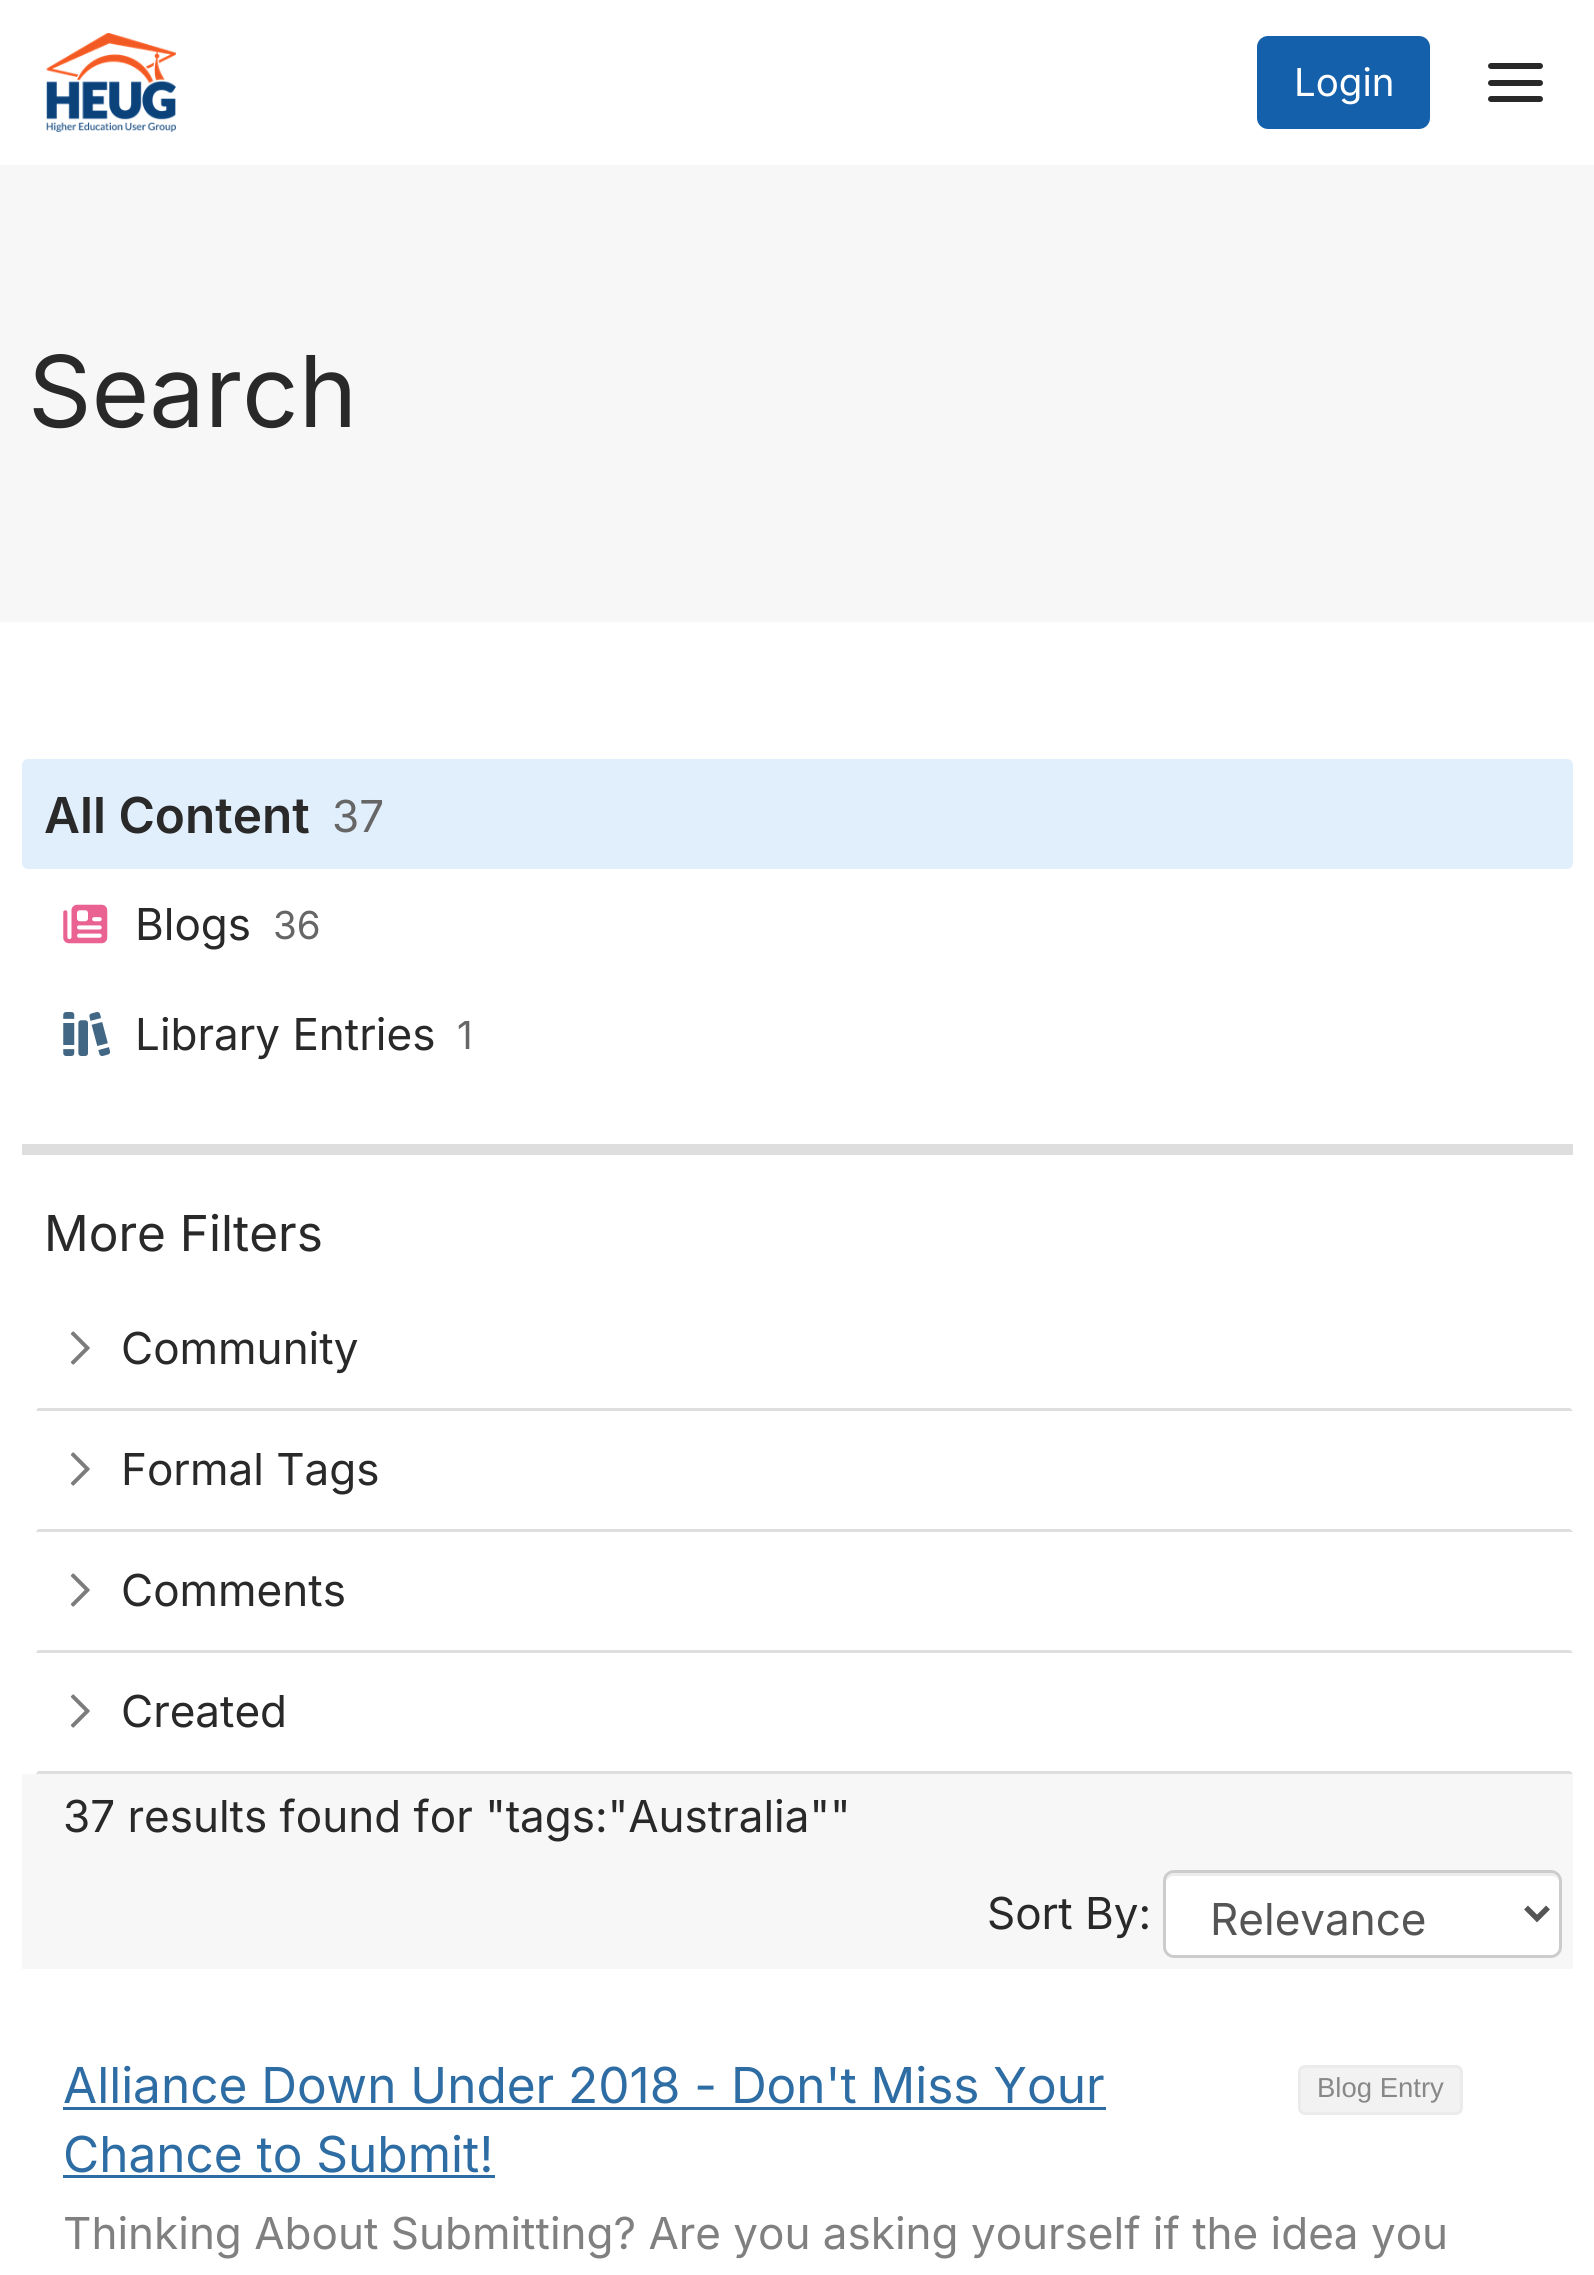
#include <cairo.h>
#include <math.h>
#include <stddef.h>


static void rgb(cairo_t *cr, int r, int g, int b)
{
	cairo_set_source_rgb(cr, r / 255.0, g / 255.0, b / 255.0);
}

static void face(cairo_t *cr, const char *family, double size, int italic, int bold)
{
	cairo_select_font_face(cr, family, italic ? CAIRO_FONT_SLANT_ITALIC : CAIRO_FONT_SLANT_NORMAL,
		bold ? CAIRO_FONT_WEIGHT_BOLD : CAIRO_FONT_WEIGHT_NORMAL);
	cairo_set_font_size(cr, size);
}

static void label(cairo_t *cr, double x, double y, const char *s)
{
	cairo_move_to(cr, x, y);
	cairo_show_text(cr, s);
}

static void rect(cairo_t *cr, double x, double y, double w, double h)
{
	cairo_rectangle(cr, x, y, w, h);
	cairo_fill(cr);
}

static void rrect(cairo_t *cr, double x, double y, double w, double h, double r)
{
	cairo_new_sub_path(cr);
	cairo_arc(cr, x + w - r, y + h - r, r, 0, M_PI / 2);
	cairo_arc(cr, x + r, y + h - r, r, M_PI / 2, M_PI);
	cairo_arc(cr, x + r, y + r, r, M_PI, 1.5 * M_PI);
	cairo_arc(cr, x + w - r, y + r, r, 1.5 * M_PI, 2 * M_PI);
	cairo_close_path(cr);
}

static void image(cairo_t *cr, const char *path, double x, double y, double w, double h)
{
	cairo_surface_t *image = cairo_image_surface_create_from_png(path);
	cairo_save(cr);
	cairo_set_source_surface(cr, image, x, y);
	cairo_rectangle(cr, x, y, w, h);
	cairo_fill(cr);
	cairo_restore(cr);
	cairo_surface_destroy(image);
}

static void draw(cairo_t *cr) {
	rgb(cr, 255, 255, 255);
	cairo_paint(cr);
	image(cr, "image0.png", 46, 33, 130, 99);
	rgb(cr, 20, 96, 170);
	rrect(cr, 1258.5, 37.5, 170, 90, 9.5);
	cairo_fill_preserve(cr);
	cairo_set_line_width(cr, 3);
	cairo_stroke(cr);
	face(cr, "Inter", 38.5, 0, 0);
	rgb(cr, 255, 255, 255);
	label(cr, 1294, 96, "Login");
	rgb(cr, 41, 41, 41);
	rrect(cr, 1488, 63, 55, 6, 3);
	cairo_fill(cr);
	rrect(cr, 1488, 80, 55, 6, 3);
	cairo_fill(cr);
	rrect(cr, 1488, 96, 55, 6, 3);
	cairo_fill(cr);
	rgb(cr, 247, 247, 247);
	rect(cr, 0, 165, 1594, 457);
	face(cr, "Inter", 99, 0, 0);
	rgb(cr, 41, 41, 41);
	label(cr, 28, 427, "Search");
	rgb(cr, 225, 238, 251);
	rrect(cr, 22, 759, 1551, 110, 6);
	cairo_fill(cr);
	face(cr, "Inter SemiBold", 49.5, 0, 0);
	rgb(cr, 41, 41, 41);
	label(cr, 44, 833, "All Content");
	face(cr, "Inter", 44, 0, 0);
	rgb(cr, 102, 102, 102);
	label(cr, 332, 832, "37");
	image(cr, "image1.png", 63, 904, 45, 40);
	rgb(cr, 41, 41, 41);
	label(cr, 135, 940, "Blogs");
	face(cr, "Inter", 38.5, 0, 0);
	rgb(cr, 102, 102, 102);
	label(cr, 273, 939, "36");
	image(cr, "image2.png", 63, 1012, 48, 44);
	face(cr, "Inter", 44, 0, 0);
	rgb(cr, 41, 41, 41);
	label(cr, 135, 1050, "Library Entries");
	face(cr, "Inter", 38.5, 0, 0);
	rgb(cr, 102, 102, 102);
	label(cr, 457, 1049, "1");
	rgb(cr, 222, 222, 223);
	rect(cr, 22, 1144, 1551, 11);
	face(cr, "Inter", 49.5, 0, 0);
	rgb(cr, 41, 41, 41);
	label(cr, 44, 1251, "More Filters");
	rgb(cr, 222, 222, 223);
	cairo_new_path(cr);
	cairo_move_to(cr, 1573, 1411);
	cairo_line_to(cr, 36, 1411);
	cairo_line_to(cr, 38, 1408);
	cairo_line_to(cr, 1570, 1408);
	cairo_close_path(cr);
	cairo_fill(cr);
	image(cr, "image3.png", 70, 1331, 20, 34);
	face(cr, "Inter", 44, 0, 0);
	rgb(cr, 41, 41, 41);
	label(cr, 121, 1364, "Community");
	rgb(cr, 222, 222, 223);
	cairo_new_path(cr);
	cairo_move_to(cr, 1573, 1532);
	cairo_line_to(cr, 36, 1532);
	cairo_line_to(cr, 38, 1529);
	cairo_line_to(cr, 1570, 1529);
	cairo_close_path(cr);
	cairo_fill(cr);
	image(cr, "image3.png", 70, 1452, 20, 34);
	rgb(cr, 41, 41, 41);
	label(cr, 121, 1485, "Formal Tags");
	rgb(cr, 222, 222, 223);
	cairo_new_path(cr);
	cairo_move_to(cr, 1573, 1653);
	cairo_line_to(cr, 36, 1653);
	cairo_line_to(cr, 38, 1650);
	cairo_line_to(cr, 1570, 1650);
	cairo_close_path(cr);
	cairo_fill(cr);
	image(cr, "image3.png", 70, 1573, 20, 34);
	rgb(cr, 41, 41, 41);
	label(cr, 121, 1606, "Comments");
	rgb(cr, 222, 222, 223);
	cairo_new_path(cr);
	cairo_move_to(cr, 1573, 1774);
	cairo_line_to(cr, 36, 1774);
	cairo_line_to(cr, 38, 1771);
	cairo_line_to(cr, 1570, 1771);
	cairo_close_path(cr);
	cairo_fill(cr);
	image(cr, "image3.png", 70, 1694, 20, 34);
	rgb(cr, 41, 41, 41);
	label(cr, 121, 1727, "Created");
	rgb(cr, 247, 247, 247);
	rect(cr, 22, 1774, 1551, 195);
	rgb(cr, 41, 41, 41);
	label(cr, 63, 1832, "37 results found for \"tags:\"Australia\"\"");
	label(cr, 987, 1929, "Sort By:");
	rgb(cr, 255, 255, 255);
	rrect(cr, 1163, 1870, 399, 88, 11);
	cairo_fill(cr);
	rgb(cr, 236, 236, 236);
	cairo_new_path(cr);
	cairo_move_to(cr, 1174, 1876);
	cairo_line_to(cr, 1551, 1876);
	cairo_curve_to(cr, 1556, 1876, 1559, 1879, 1559, 1884);
	cairo_curve_to(cr, 1559, 1879, 1557, 1873, 1551, 1873);
	cairo_line_to(cr, 1174, 1873);
	cairo_curve_to(cr, 1168, 1873, 1166, 1879, 1166, 1884);
	cairo_curve_to(cr, 1166, 1879, 1170, 1876, 1174, 1876);
	cairo_close_path(cr);
	cairo_fill(cr);
	rrect(cr, 1164.5, 1871.5, 396, 85, 9.5);
	rgb(cr, 204, 204, 204);
	cairo_stroke(cr);
	cairo_new_path(cr);
	cairo_move_to(cr, 1526, 1907.5);
	cairo_line_to(cr, 1537, 1918.5);
	cairo_line_to(cr, 1548, 1907.5);
	rgb(cr, 85, 85, 85);
	cairo_set_line_width(cr, 5.5);
	cairo_stroke(cr);
	label(cr, 1210, 1935, "Relevance");
	face(cr, "Inter", 49.5, 0, 0);
	rgb(cr, 46, 109, 164);
	label(cr, 63, 2103, "Alliance Down Under 2018 - Don't Miss Your");
	rect(cr, 63, 2107, 1043, 3);
	rgb(cr, 242, 242, 242);
	rrect(cr, 1299.5, 2066.5, 162, 47, 5.5);
	cairo_fill_preserve(cr);
	rgb(cr, 235, 235, 235);
	cairo_set_line_width(cr, 3);
	cairo_stroke(cr);
	face(cr, "Liberation Sans", 27.5, 0, 0);
	rgb(cr, 136, 136, 136);
	label(cr, 1317, 2097, "Blog Entry");
	face(cr, "Inter", 49.5, 0, 0);
	rgb(cr, 46, 109, 164);
	label(cr, 63, 2172, "Chance to Submit!");
	rect(cr, 63, 2175, 432, 3);
	face(cr, "Inter", 44, 0, 0);
	rgb(cr, 128, 128, 128);
	label(cr, 63, 2249, "Thinking About Submitting? Are you asking yourself if the idea you");
}

int main(void) {
	cairo_surface_t *surface = cairo_image_surface_create(CAIRO_FORMAT_RGB24, 1594, 2275);
	cairo_t *cr = cairo_create(surface);
	cairo_font_options_t *options = cairo_font_options_create();
	cairo_font_options_set_hint_metrics(options, CAIRO_HINT_METRICS_OFF);
	cairo_font_options_set_hint_style(options, CAIRO_HINT_STYLE_NONE);
	cairo_set_font_options(cr, options);
	cairo_set_miter_limit(cr, 4);
	draw(cr);
	cairo_surface_write_to_png(surface, "render.png");
	cairo_font_options_destroy(options);
	cairo_destroy(cr);
	cairo_surface_destroy(surface);
	return 0;
}
